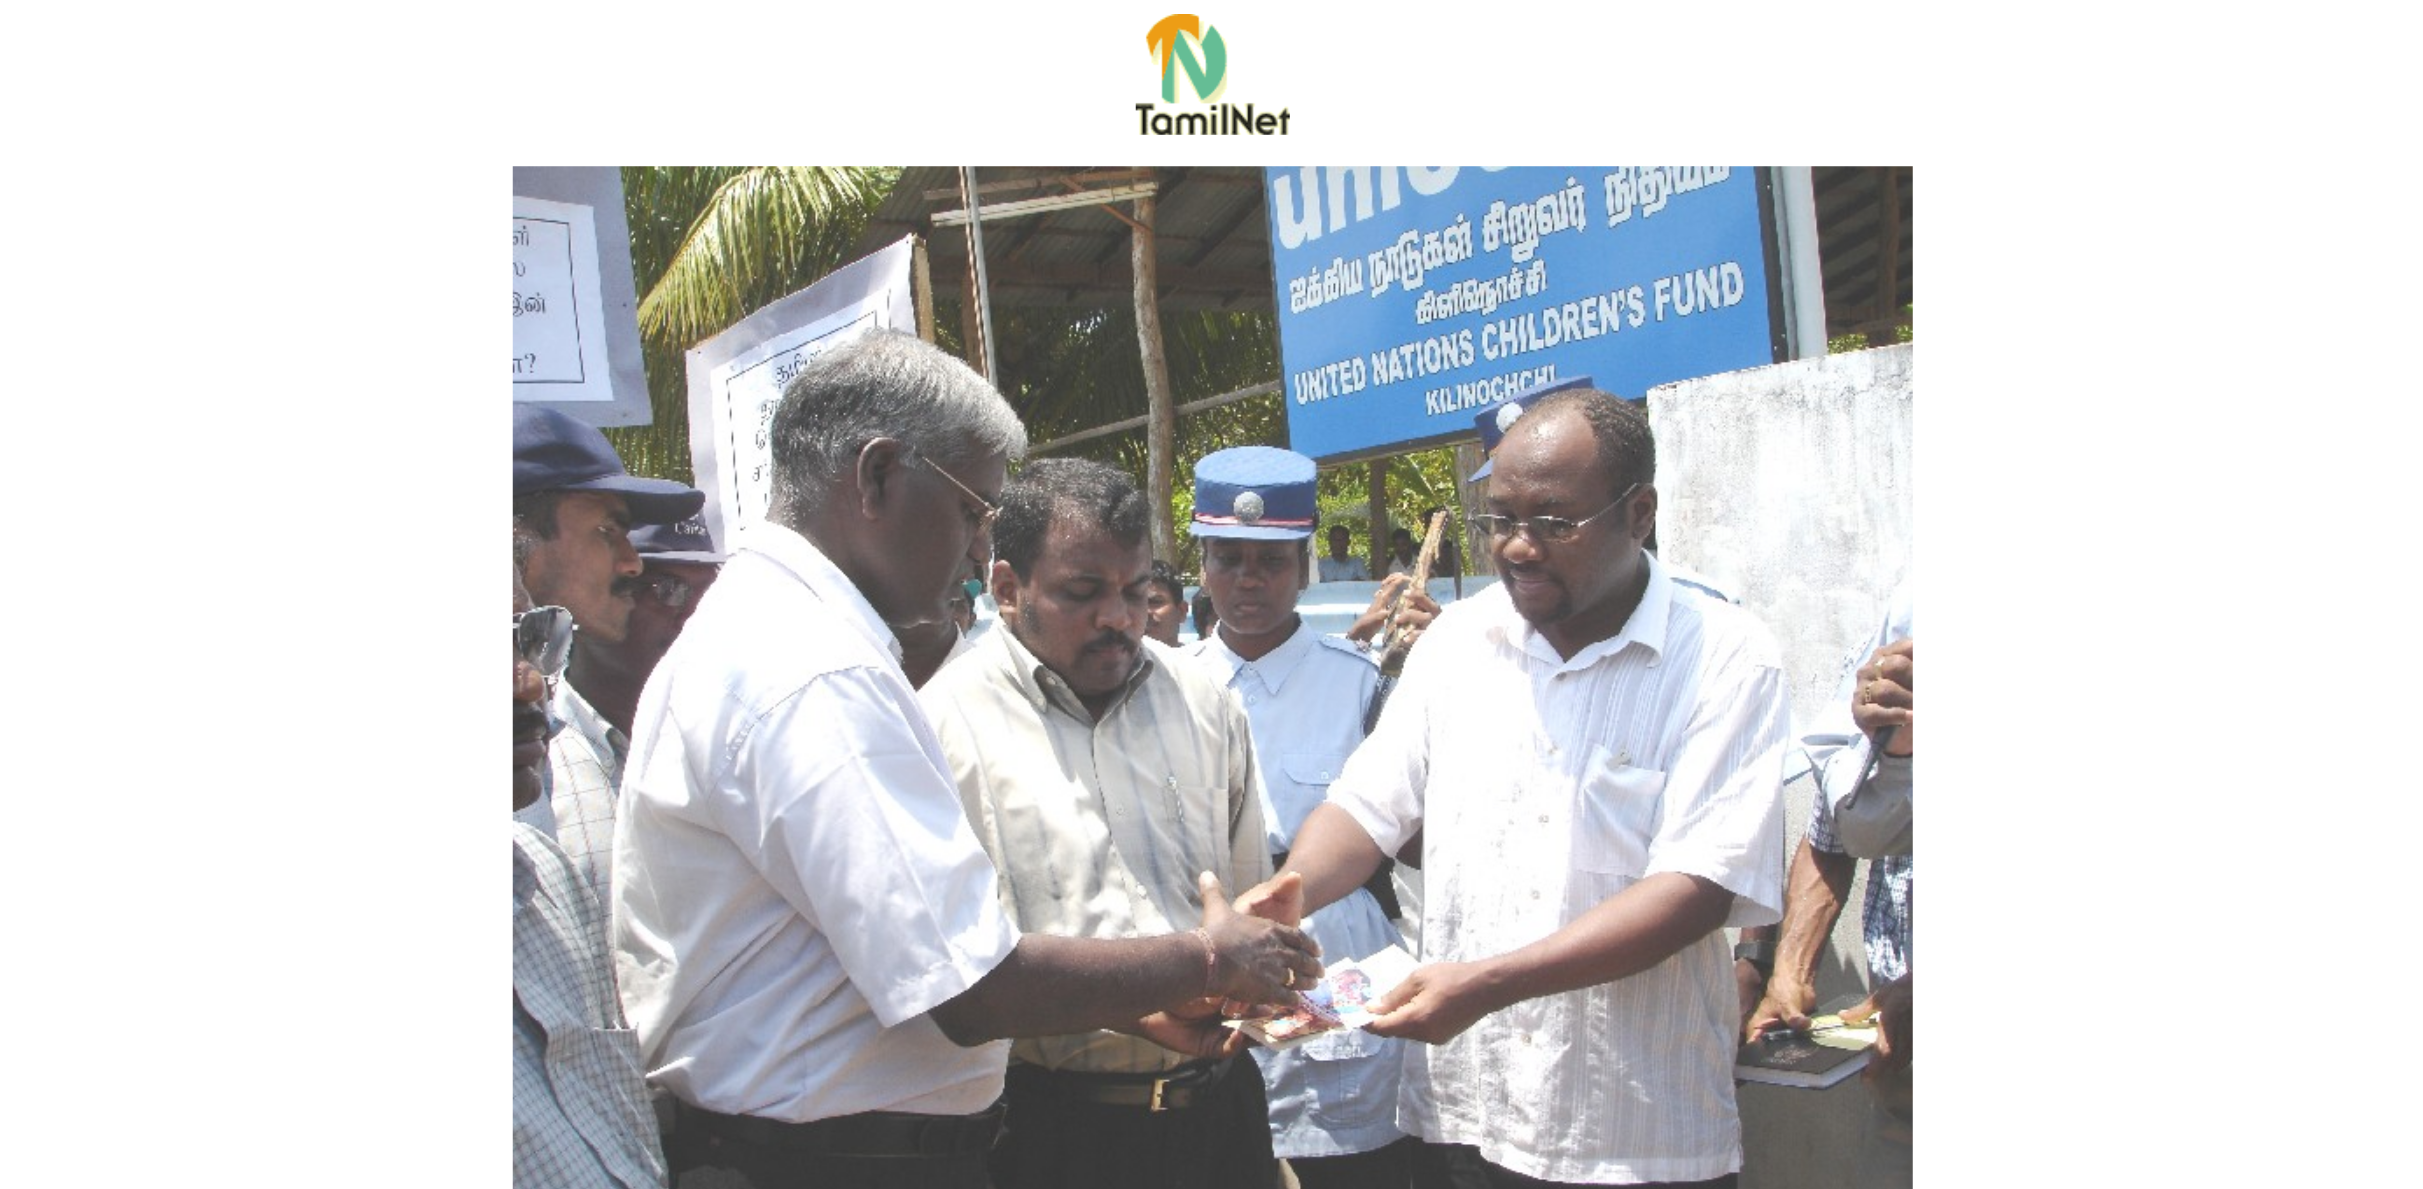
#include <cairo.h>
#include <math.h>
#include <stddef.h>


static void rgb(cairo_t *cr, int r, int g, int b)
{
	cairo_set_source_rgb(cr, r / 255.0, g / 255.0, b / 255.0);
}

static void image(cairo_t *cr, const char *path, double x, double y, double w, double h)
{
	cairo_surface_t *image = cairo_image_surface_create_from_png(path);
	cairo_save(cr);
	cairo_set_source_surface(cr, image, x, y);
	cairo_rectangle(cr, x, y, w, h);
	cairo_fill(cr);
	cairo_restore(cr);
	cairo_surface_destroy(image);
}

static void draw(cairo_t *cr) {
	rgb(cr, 255, 255, 255);
	cairo_paint(cr);
	image(cr, "image0.png", 1135, 14, 155, 121);
	image(cr, "image1.png", 512, 166, 1401, 1023);
}

int main(void) {
	cairo_surface_t *surface = cairo_image_surface_create(CAIRO_FORMAT_RGB24, 2423, 1189);
	cairo_t *cr = cairo_create(surface);
	cairo_font_options_t *options = cairo_font_options_create();
	cairo_font_options_set_hint_metrics(options, CAIRO_HINT_METRICS_OFF);
	cairo_font_options_set_hint_style(options, CAIRO_HINT_STYLE_NONE);
	cairo_set_font_options(cr, options);
	cairo_set_miter_limit(cr, 4);
	draw(cr);
	cairo_surface_write_to_png(surface, "render.png");
	cairo_font_options_destroy(options);
	cairo_destroy(cr);
	cairo_surface_destroy(surface);
	return 0;
}
